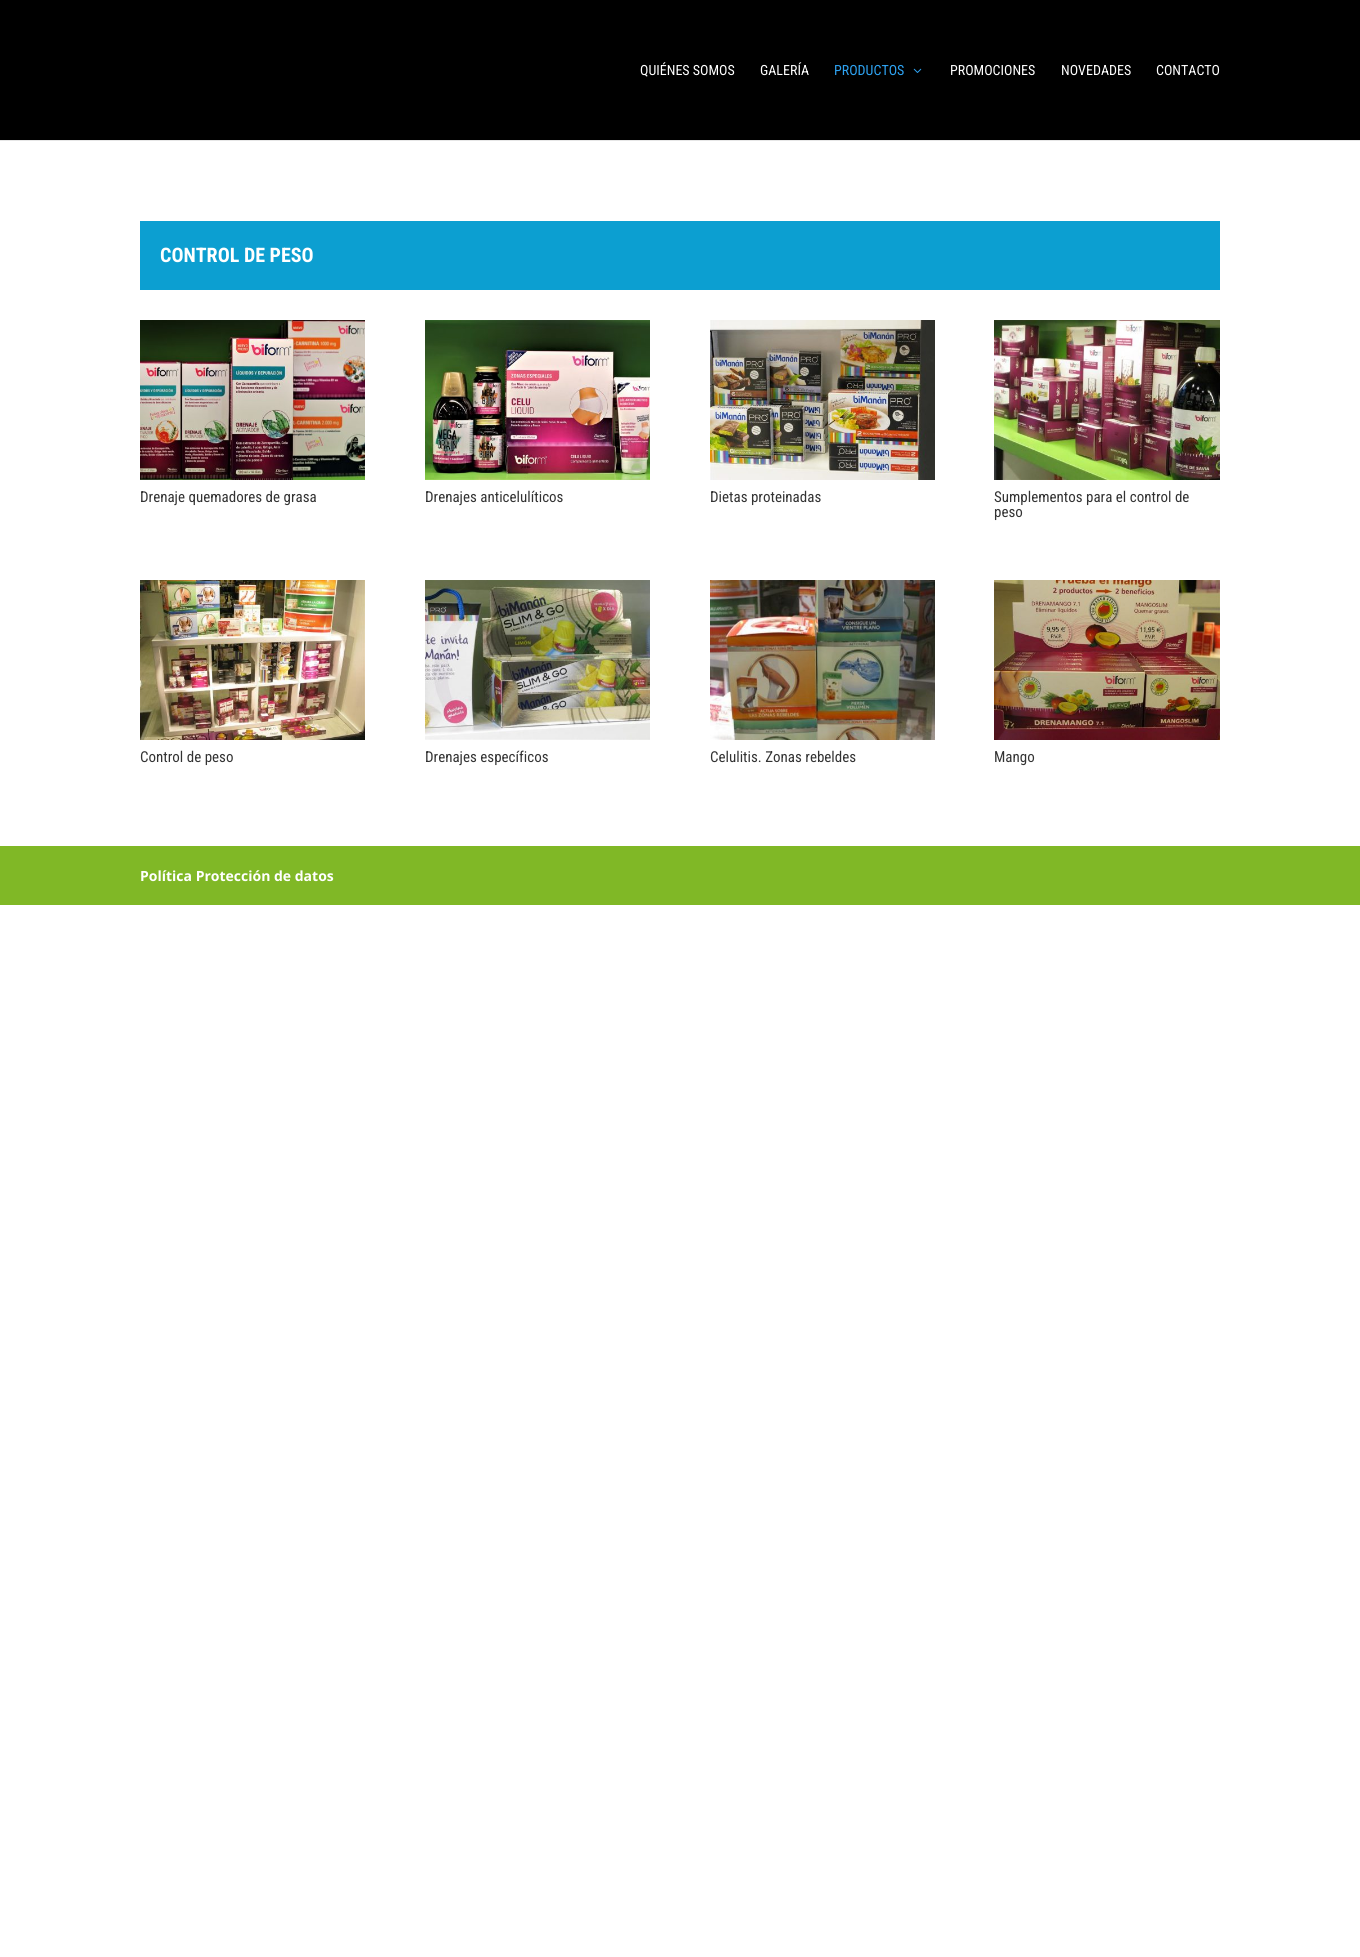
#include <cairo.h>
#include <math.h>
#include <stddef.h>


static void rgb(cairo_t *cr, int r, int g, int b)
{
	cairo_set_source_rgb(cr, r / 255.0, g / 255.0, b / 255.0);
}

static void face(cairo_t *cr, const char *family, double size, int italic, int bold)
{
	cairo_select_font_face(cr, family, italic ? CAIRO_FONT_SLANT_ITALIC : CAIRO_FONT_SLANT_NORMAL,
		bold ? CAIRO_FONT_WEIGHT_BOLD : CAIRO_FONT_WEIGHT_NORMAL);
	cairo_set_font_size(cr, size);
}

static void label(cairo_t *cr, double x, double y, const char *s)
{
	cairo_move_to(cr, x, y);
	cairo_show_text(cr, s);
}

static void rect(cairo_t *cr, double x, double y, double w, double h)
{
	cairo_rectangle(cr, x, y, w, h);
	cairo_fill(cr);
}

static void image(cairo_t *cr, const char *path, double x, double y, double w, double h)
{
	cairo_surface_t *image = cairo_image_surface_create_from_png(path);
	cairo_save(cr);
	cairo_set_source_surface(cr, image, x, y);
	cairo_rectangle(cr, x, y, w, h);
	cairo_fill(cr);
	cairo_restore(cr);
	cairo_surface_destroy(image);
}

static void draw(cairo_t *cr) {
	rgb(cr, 255, 255, 255);
	cairo_paint(cr);
	rgb(cr, 230, 230, 230);
	rect(cr, 0, 140, 1360, 1);
	rgb(cr, 0, 0, 0);
	rect(cr, 0, 0, 1360, 140);
	face(cr, "Roboto Condensed", 14, 0, 0);
	rgb(cr, 255, 255, 255);
	label(cr, 640, 75, "QUIÉNES SOMOS");
	label(cr, 760, 75, "GALERÍA");
	rgb(cr, 46, 163, 242);
	label(cr, 834, 75, "PRODUCTOS");
	image(cr, "image0.png", 913, 68, 9, 5);
	rgb(cr, 255, 255, 255);
	label(cr, 950, 75, "PROMOCIONES");
	label(cr, 1061, 75, "NOVEDADES");
	label(cr, 1156, 75, "CONTACTO");
	rgb(cr, 12, 159, 209);
	rect(cr, 140, 221, 1080, 69);
	face(cr, "Roboto Condensed", 20, 0, 1);
	rgb(cr, 255, 255, 255);
	label(cr, 160, 262, "CONTROL DE PESO");
	image(cr, "image1.png", 140, 320, 225, 160);
	face(cr, "Roboto Condensed", 15, 0, 0);
	rgb(cr, 51, 51, 51);
	label(cr, 140, 502, "Drenaje quemadores de grasa");
	image(cr, "image2.png", 425, 320, 225, 160);
	label(cr, 425, 502, "Drenajes anticelulíticos");
	image(cr, "image3.png", 710, 320, 225, 160);
	label(cr, 710, 502, "Dietas proteinadas");
	image(cr, "image4.png", 994, 320, 226, 160);
	label(cr, 994, 502, "Sumplementos para el control de");
	label(cr, 994, 517, "peso");
	image(cr, "image5.png", 140, 580, 225, 160);
	label(cr, 140, 762, "Control de peso");
	image(cr, "image6.png", 425, 580, 225, 160);
	label(cr, 425, 762, "Drenajes específicos");
	image(cr, "image7.png", 710, 580, 225, 160);
	label(cr, 710, 762, "Celulitis. Zonas rebeldes");
	image(cr, "image8.png", 994, 580, 226, 160);
	label(cr, 994, 762, "Mango");
	rgb(cr, 128, 184, 38);
	rect(cr, 0, 846, 1360, 59);
	face(cr, "Open Sans", 14, 0, 1);
	rgb(cr, 255, 255, 255);
	label(cr, 140, 881, "Política Protección de datos");
}

int main(void) {
	cairo_surface_t *surface = cairo_image_surface_create(CAIRO_FORMAT_RGB24, 1360, 1957);
	cairo_t *cr = cairo_create(surface);
	cairo_font_options_t *options = cairo_font_options_create();
	cairo_font_options_set_hint_metrics(options, CAIRO_HINT_METRICS_OFF);
	cairo_font_options_set_hint_style(options, CAIRO_HINT_STYLE_NONE);
	cairo_set_font_options(cr, options);
	cairo_set_miter_limit(cr, 4);
	draw(cr);
	cairo_surface_write_to_png(surface, "render.png");
	cairo_font_options_destroy(options);
	cairo_destroy(cr);
	cairo_surface_destroy(surface);
	return 0;
}
